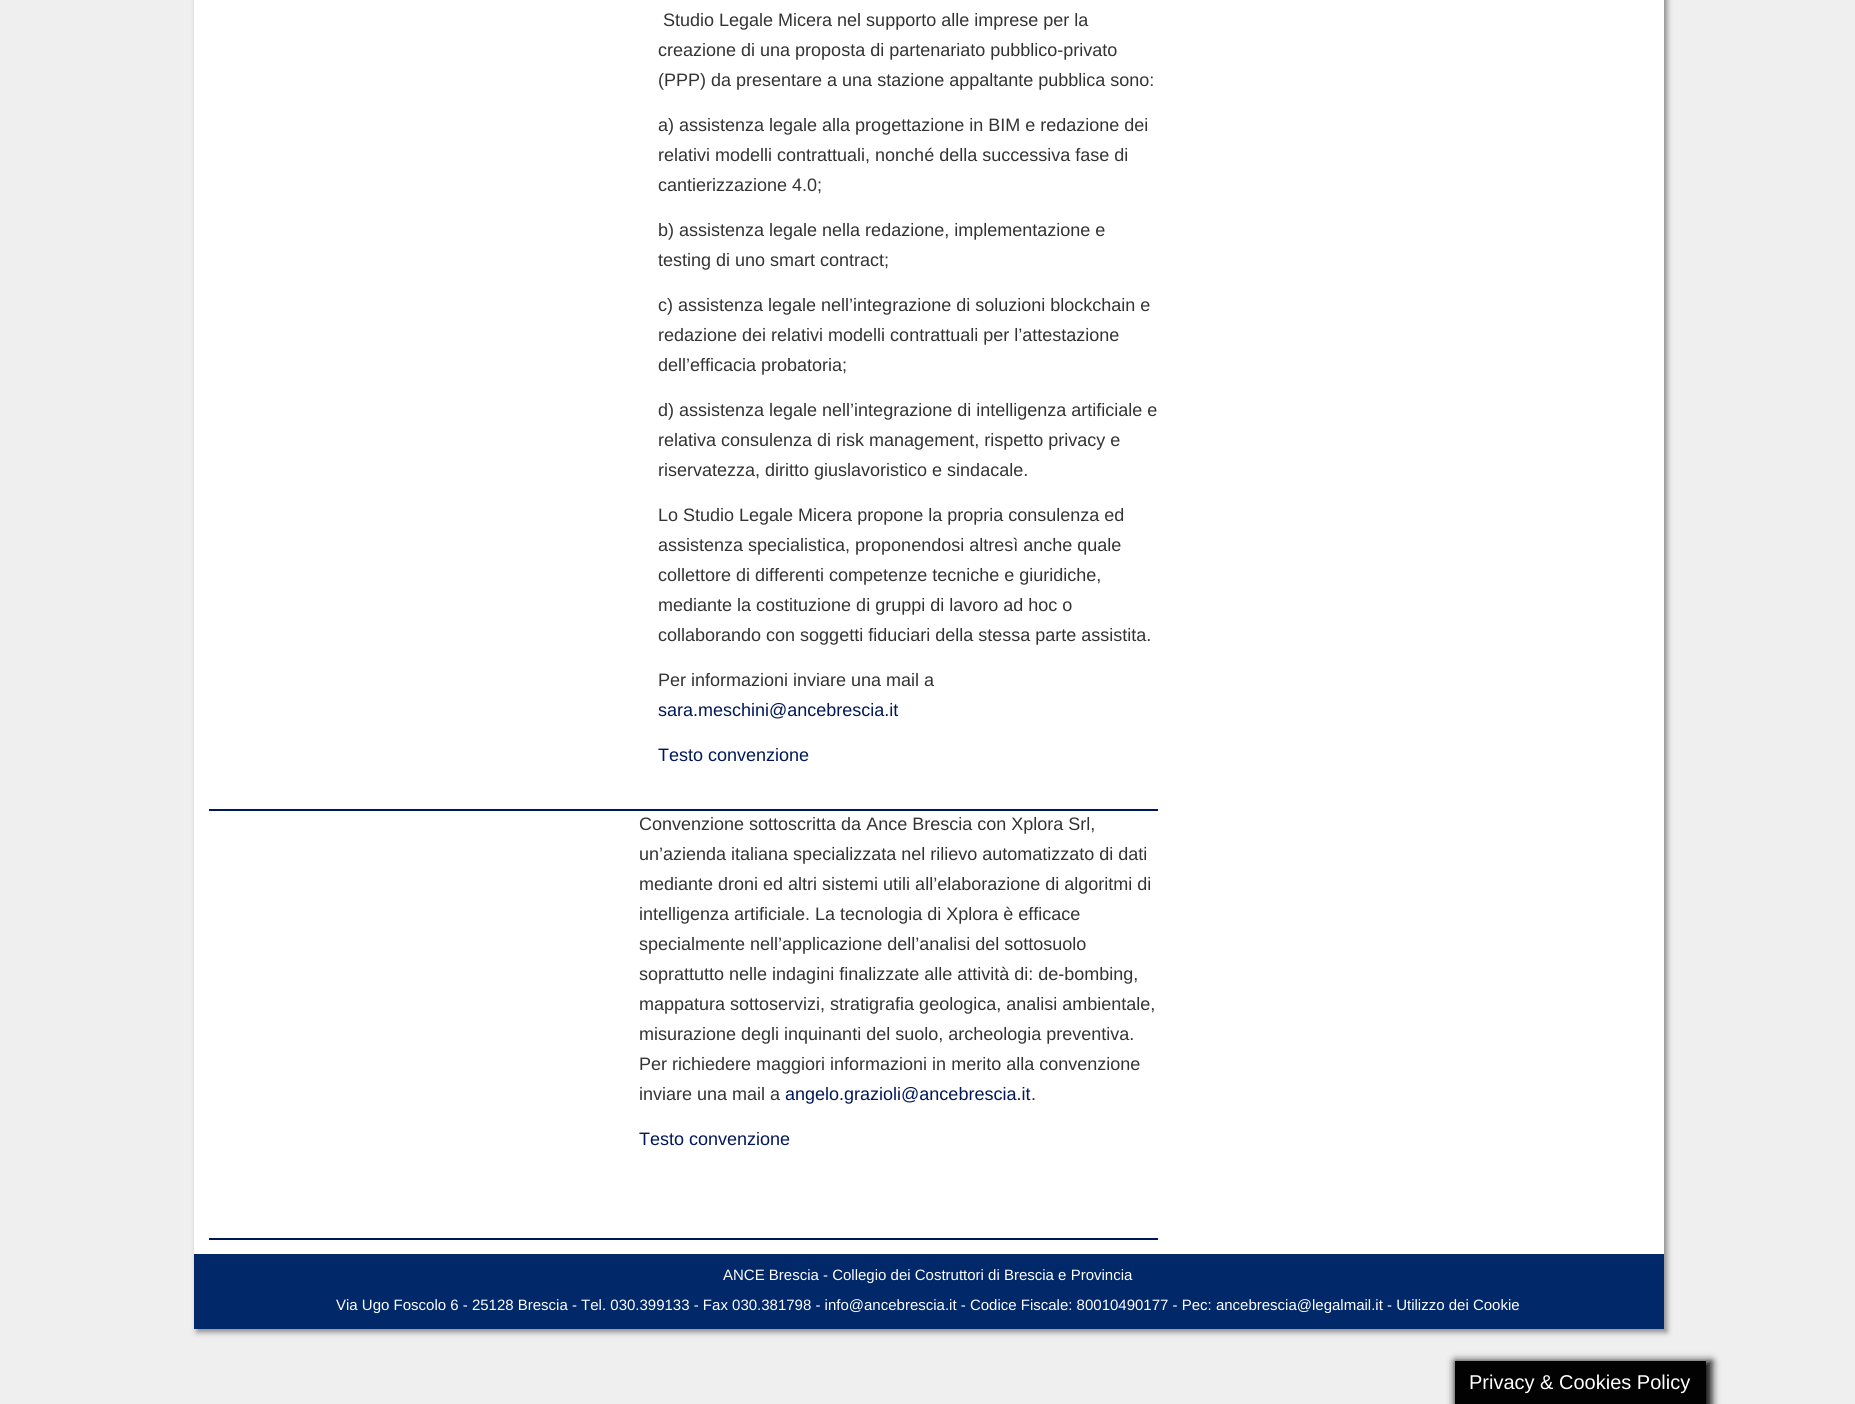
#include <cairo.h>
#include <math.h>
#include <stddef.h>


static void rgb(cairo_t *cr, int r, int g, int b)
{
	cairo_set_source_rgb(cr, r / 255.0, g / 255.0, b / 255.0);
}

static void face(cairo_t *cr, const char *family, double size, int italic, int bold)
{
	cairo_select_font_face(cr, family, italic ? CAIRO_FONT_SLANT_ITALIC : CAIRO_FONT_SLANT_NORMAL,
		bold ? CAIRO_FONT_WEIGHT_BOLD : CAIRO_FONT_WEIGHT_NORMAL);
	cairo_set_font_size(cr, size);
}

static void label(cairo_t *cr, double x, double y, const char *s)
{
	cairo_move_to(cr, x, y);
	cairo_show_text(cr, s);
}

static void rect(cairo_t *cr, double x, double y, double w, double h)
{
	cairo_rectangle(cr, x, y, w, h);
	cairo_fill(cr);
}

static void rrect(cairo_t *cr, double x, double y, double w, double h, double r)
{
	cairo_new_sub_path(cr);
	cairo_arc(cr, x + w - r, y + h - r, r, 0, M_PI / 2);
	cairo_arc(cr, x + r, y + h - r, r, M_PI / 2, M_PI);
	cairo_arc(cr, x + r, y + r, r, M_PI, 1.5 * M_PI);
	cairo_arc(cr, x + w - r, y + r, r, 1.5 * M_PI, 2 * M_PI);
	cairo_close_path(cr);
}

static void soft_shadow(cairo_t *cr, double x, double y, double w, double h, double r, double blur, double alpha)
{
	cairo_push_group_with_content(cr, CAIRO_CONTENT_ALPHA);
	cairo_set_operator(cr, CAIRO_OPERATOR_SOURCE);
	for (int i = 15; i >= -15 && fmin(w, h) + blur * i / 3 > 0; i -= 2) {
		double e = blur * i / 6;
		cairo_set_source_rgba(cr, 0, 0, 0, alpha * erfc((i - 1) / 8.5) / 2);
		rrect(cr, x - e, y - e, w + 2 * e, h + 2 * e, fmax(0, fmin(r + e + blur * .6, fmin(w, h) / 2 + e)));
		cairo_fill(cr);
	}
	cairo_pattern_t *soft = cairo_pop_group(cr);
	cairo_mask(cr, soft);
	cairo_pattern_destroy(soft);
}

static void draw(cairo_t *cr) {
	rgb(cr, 239, 239, 239);
	cairo_paint(cr);
	rgb(cr, 136, 136, 136);
	soft_shadow(cr, 197, -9, 1470, 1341, 0, 3, 1);
	rgb(cr, 255, 255, 255);
	rect(cr, 194, 0, 1470, 1254);
	face(cr, "Liberation Sans", 18, 0, 0);
	rgb(cr, 51, 51, 51);
	label(cr, 663, 26, "Studio Legale Micera nel supporto alle imprese per la");
	label(cr, 658, 56, "creazione di una proposta di partenariato pubblico-privato");
	label(cr, 658, 86, "(PPP) da presentare a una stazione appaltante pubblica sono:");
	label(cr, 658, 131, "a) assistenza legale alla progettazione in BIM e redazione dei");
	label(cr, 658, 161, "relativi modelli contrattuali, nonché della successiva fase di");
	label(cr, 658, 191, "cantierizzazione 4.0;");
	label(cr, 658, 236, "b) assistenza legale nella redazione, implementazione e");
	label(cr, 658, 266, "testing di uno smart contract;");
	label(cr, 658, 311, "c) assistenza legale nell’integrazione di soluzioni blockchain e");
	label(cr, 658, 341, "redazione dei relativi modelli contrattuali per l’attestazione");
	label(cr, 658, 371, "dell’efficacia probatoria;");
	label(cr, 658, 416, "d) assistenza legale nell’integrazione di intelligenza artificiale e");
	label(cr, 658, 446, "relativa consulenza di risk management, rispetto privacy e");
	label(cr, 658, 476, "riservatezza, diritto giuslavoristico e sindacale.");
	label(cr, 658, 521, "Lo Studio Legale Micera propone la propria consulenza ed");
	label(cr, 658, 551, "assistenza specialistica, proponendosi altresì anche quale");
	label(cr, 658, 581, "collettore di differenti competenze tecniche e giuridiche,");
	label(cr, 658, 611, "mediante la costituzione di gruppi di lavoro ad hoc o");
	label(cr, 658, 641, "collaborando con soggetti fiduciari della stessa parte assistita.");
	label(cr, 658, 686, "Per informazioni inviare una mail a");
	rgb(cr, 0, 23, 89);
	label(cr, 658, 716, "sara.meschini@ancebrescia.it");
	label(cr, 658, 761, "Testo convenzione");
	rect(cr, 209, 809, 949, 2);
	rgb(cr, 51, 51, 51);
	label(cr, 639, 830, "Convenzione sottoscritta da Ance Brescia con Xplora Srl,");
	label(cr, 639, 860, "un’azienda italiana specializzata nel rilievo automatizzato di dati");
	label(cr, 639, 890, "mediante droni ed altri sistemi utili all’elaborazione di algoritmi di");
	label(cr, 639, 920, "intelligenza artificiale. La tecnologia di Xplora è efficace");
	label(cr, 639, 950, "specialmente nell’applicazione dell’analisi del sottosuolo");
	label(cr, 639, 980, "soprattutto nelle indagini finalizzate alle attività di: de-bombing,");
	label(cr, 639, 1010, "mappatura sottoservizi, stratigrafia geologica, analisi ambientale,");
	label(cr, 639, 1040, "misurazione degli inquinanti del suolo, archeologia preventiva.");
	label(cr, 639, 1070, "Per richiedere maggiori informazioni in merito alla convenzione");
	label(cr, 639, 1100, "inviare una mail a");
	rgb(cr, 0, 23, 89);
	label(cr, 785, 1100, "angelo.grazioli@ancebrescia.it");
	rgb(cr, 51, 51, 51);
	label(cr, 1031, 1100, ".");
	rgb(cr, 0, 23, 89);
	label(cr, 639, 1145, "Testo convenzione");
	rect(cr, 209, 1238, 949, 2);
	rgb(cr, 1, 40, 105);
	rect(cr, 194, 1254, 1470, 75);
	face(cr, "Liberation Sans", 15, 0, 0);
	rgb(cr, 255, 255, 255);
	label(cr, 723, 1280, "ANCE Brescia - Collegio dei Costruttori di Brescia e Provincia");
	label(cr, 336, 1310, "Via Ugo Foscolo 6 - 25128 Brescia - Tel. 030.399133 - Fax 030.381798 - info@ancebrescia.it - Codice Fiscale: 80010490177 - Pec: ancebrescia@legalmail.it - Utilizzo dei Cookie");
	rgb(cr, 22, 22, 22);
	soft_shadow(cr, 1455, 1361, 257, 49, 0, 4, 1);
	rgb(cr, 2, 2, 2);
	rect(cr, 1455, 1361, 251, 43);
	face(cr, "Liberation Sans", 20, 0, 0);
	rgb(cr, 255, 255, 255);
	label(cr, 1469, 1389, "Privacy & Cookies Policy");
}

int main(void) {
	cairo_surface_t *surface = cairo_image_surface_create(CAIRO_FORMAT_RGB24, 1855, 1404);
	cairo_t *cr = cairo_create(surface);
	cairo_font_options_t *options = cairo_font_options_create();
	cairo_font_options_set_hint_metrics(options, CAIRO_HINT_METRICS_OFF);
	cairo_font_options_set_hint_style(options, CAIRO_HINT_STYLE_NONE);
	cairo_set_font_options(cr, options);
	cairo_set_miter_limit(cr, 4);
	draw(cr);
	cairo_surface_write_to_png(surface, "render.png");
	cairo_font_options_destroy(options);
	cairo_destroy(cr);
	cairo_surface_destroy(surface);
	return 0;
}
